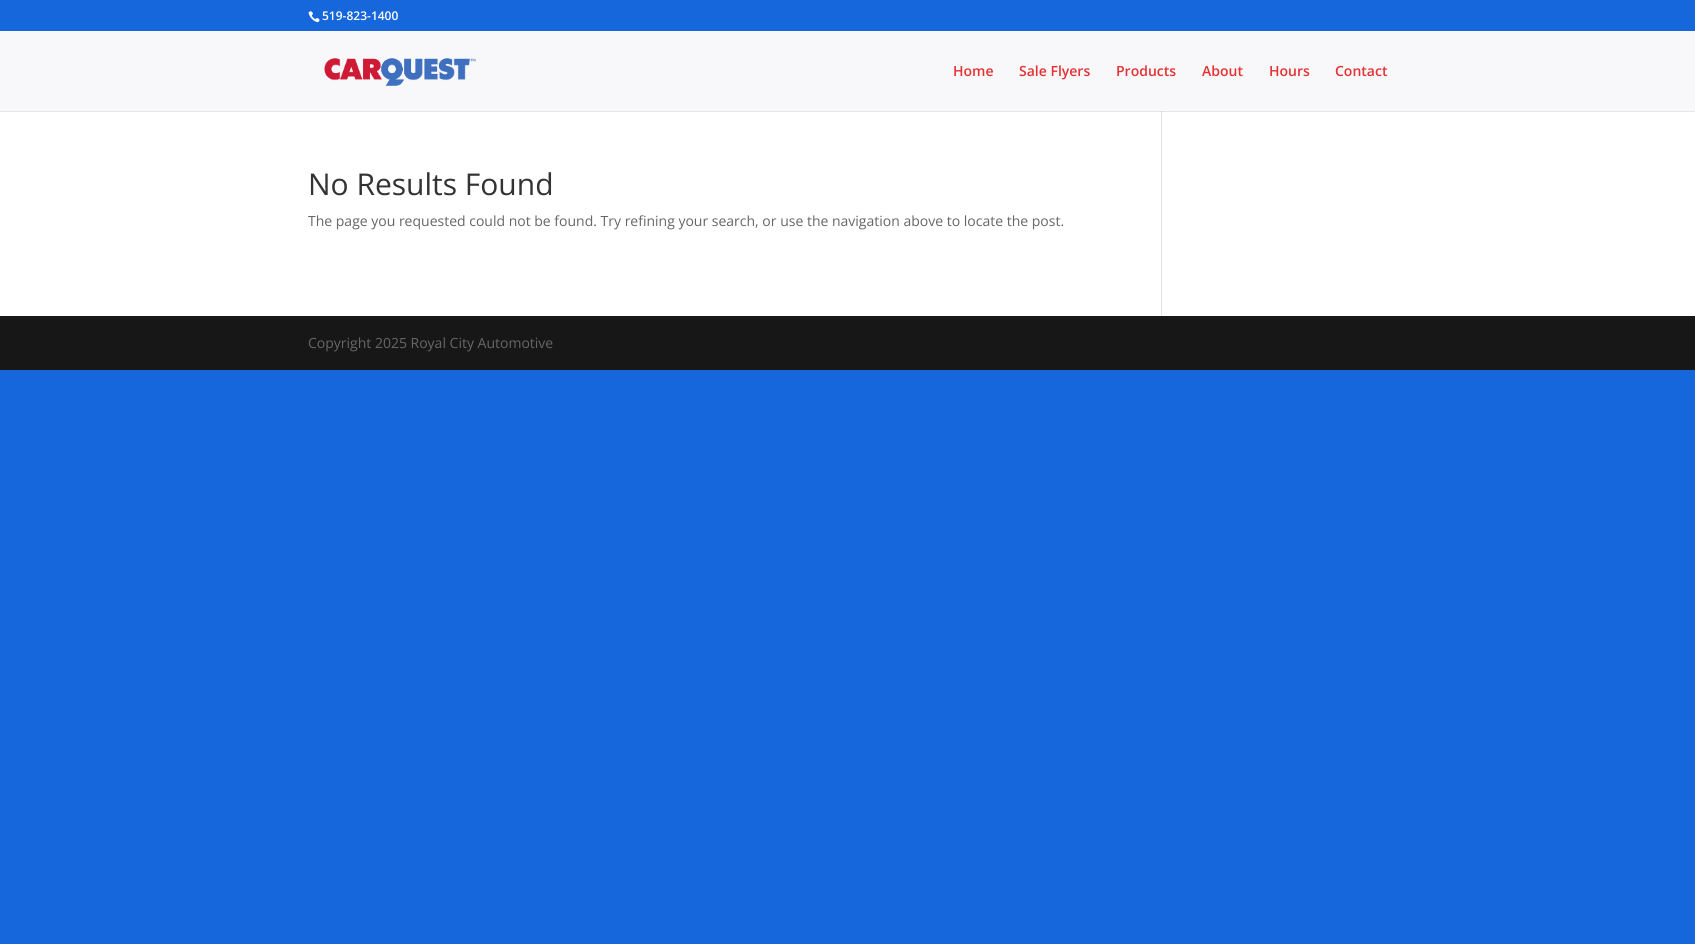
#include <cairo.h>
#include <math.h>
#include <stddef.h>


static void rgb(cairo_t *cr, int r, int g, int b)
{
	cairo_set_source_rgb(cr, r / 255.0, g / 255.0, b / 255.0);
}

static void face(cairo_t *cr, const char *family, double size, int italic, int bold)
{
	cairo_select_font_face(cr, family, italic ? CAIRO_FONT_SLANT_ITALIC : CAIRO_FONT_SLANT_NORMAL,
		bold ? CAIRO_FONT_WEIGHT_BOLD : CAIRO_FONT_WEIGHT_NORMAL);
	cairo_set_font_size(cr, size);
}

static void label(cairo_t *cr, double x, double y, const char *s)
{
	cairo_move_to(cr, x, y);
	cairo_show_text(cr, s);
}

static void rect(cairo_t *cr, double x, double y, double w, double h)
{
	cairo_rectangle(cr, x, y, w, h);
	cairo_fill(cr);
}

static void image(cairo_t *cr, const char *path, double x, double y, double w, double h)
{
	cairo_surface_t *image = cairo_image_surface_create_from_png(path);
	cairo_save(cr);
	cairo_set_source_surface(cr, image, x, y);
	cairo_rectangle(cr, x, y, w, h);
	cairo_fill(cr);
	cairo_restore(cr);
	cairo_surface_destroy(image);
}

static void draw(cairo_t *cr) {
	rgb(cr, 23, 103, 220);
	cairo_paint(cr);
	image(cr, "image0.png", 308, 11, 12, 12);
	face(cr, "Open Sans SemiBold", 12, 0, 0);
	rgb(cr, 255, 255, 255);
	label(cr, 322, 20, "519-823-1400");
	rgb(cr, 248, 248, 250);
	rect(cr, 0, 31, 1695, 80);
	image(cr, "image1.png", 324, 58, 152, 28);
	face(cr, "Open Sans SemiBold", 14, 0, 0);
	rgb(cr, 228, 49, 49);
	label(cr, 953, 76, "Home");
	label(cr, 1019, 76, "Sale Flyers");
	label(cr, 1116, 76, "Products");
	label(cr, 1202, 76, "About");
	label(cr, 1269, 76, "Hours");
	label(cr, 1335, 76, "Contact");
	rgb(cr, 255, 255, 255);
	rect(cr, 0, 112, 1695, 204);
	rgb(cr, 230, 230, 230);
	rect(cr, 0, 111, 1695, 1);
	face(cr, "Open Sans", 30, 0, 0);
	rgb(cr, 51, 51, 51);
	label(cr, 308, 195, "No Results Found");
	face(cr, "Open Sans", 14, 0, 0);
	rgb(cr, 102, 102, 102);
	label(cr, 308, 226, "The page you requested could not be found. Try refining your search, or use the navigation above to locate the post.");
	rgb(cr, 226, 226, 226);
	rect(cr, 1161, 111, 1, 205);
	rgb(cr, 203, 203, 203);
	rect(cr, 1161, 111, 1, 1);
	rgb(cr, 23, 23, 23);
	rect(cr, 0, 316, 1695, 54);
	rgb(cr, 102, 102, 102);
	label(cr, 308, 348, "Copyright 2025 Royal City Automotive");
}

int main(void) {
	cairo_surface_t *surface = cairo_image_surface_create(CAIRO_FORMAT_RGB24, 1695, 944);
	cairo_t *cr = cairo_create(surface);
	cairo_font_options_t *options = cairo_font_options_create();
	cairo_font_options_set_hint_metrics(options, CAIRO_HINT_METRICS_OFF);
	cairo_font_options_set_hint_style(options, CAIRO_HINT_STYLE_NONE);
	cairo_set_font_options(cr, options);
	cairo_set_miter_limit(cr, 4);
	draw(cr);
	cairo_surface_write_to_png(surface, "render.png");
	cairo_font_options_destroy(options);
	cairo_destroy(cr);
	cairo_surface_destroy(surface);
	return 0;
}
